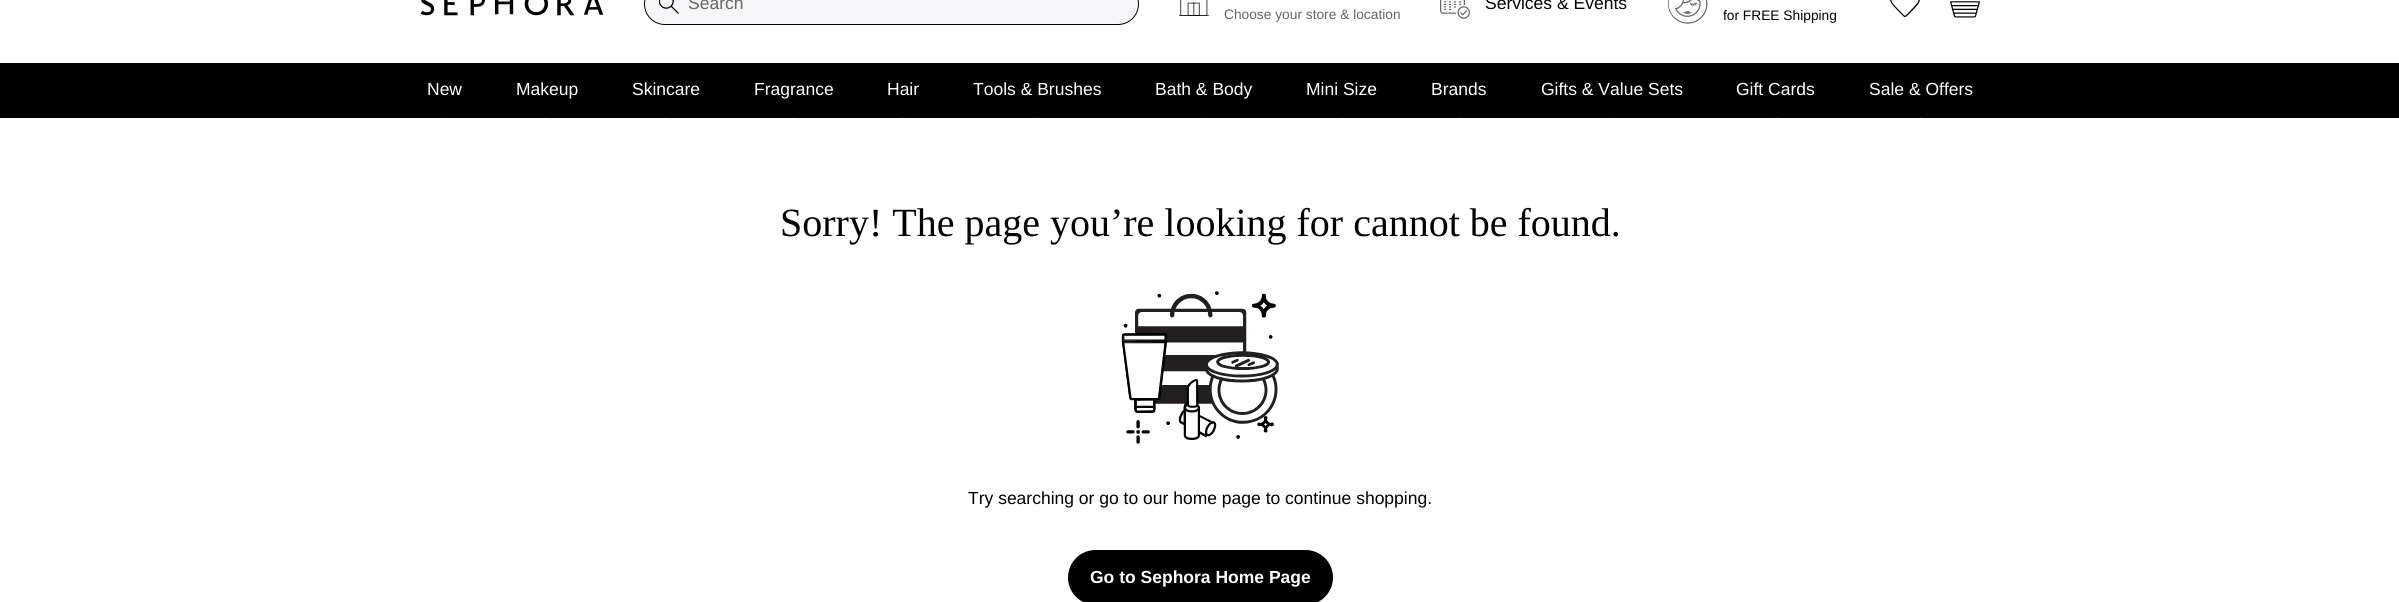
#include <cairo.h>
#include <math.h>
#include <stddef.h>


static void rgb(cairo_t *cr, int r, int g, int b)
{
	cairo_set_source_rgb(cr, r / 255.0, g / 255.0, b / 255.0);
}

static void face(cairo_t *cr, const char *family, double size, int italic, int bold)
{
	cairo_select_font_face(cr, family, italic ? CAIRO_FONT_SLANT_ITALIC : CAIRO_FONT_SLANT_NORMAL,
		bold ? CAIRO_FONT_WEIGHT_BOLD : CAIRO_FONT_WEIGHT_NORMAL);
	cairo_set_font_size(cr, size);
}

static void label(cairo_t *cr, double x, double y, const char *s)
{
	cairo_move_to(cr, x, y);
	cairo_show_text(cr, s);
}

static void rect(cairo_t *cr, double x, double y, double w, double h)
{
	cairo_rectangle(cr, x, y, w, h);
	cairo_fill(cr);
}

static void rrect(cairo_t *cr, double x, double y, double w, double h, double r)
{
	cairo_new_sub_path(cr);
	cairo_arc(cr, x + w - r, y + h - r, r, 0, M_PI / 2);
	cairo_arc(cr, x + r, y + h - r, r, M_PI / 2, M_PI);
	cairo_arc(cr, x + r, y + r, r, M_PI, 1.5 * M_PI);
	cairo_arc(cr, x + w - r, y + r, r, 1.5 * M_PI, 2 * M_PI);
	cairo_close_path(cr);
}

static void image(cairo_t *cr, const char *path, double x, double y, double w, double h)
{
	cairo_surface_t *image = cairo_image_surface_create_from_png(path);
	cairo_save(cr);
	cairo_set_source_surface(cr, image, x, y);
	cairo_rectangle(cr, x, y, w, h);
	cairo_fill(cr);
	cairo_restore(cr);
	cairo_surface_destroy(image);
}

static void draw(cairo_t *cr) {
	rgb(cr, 255, 255, 255);
	cairo_paint(cr);
	image(cr, "image0.png", 420, 0, 184, 16);
	rgb(cr, 246, 246, 248);
	rrect(cr, 644.5, -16.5, 494, 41, 20.5);
	cairo_fill_preserve(cr);
	rgb(cr, 0, 0, 0);
	cairo_set_line_width(cr, 1);
	cairo_stroke(cr);
	image(cr, "image1.png", 659, 0, 20, 14);
	face(cr, "Liberation Sans", 17.5, 0, 0);
	rgb(cr, 102, 102, 102);
	label(cr, 688, 9, "Search");
	image(cr, "image2.png", 1440, 0, 30, 19);
	rgb(cr, 0, 0, 0);
	label(cr, 1485, 9, "Services & Events");
	image(cr, "image3.png", 1179, 0, 30, 16);
	face(cr, "Liberation Sans", 13.75, 0, 0);
	rgb(cr, 102, 102, 102);
	label(cr, 1224, 19, "Choose your store & location");
	image(cr, "image4.png", 1668, 0, 40, 24);
	rgb(cr, 0, 0, 0);
	label(cr, 1723, 20, "for FREE Shipping");
	image(cr, "image5.png", 1890, 0, 30, 18);
	image(cr, "image6.png", 1950, 1, 30, 17);
	rect(cr, 0, 63, 2399, 55);
	face(cr, "Liberation Sans", 17.5, 0, 0);
	rgb(cr, 255, 255, 255);
	label(cr, 427, 95, "New");
	cairo_save(cr);
	cairo_rectangle(cr, 400, 63, 1600, 55);
	cairo_clip(cr);
	cairo_new_path(cr);
	cairo_move_to(cr, 452.5, 126);
	cairo_line_to(cr, 437.5, 126);
	cairo_line_to(cr, 445, 117.5);
	cairo_close_path(cr);
	cairo_fill(cr);
	cairo_restore(cr);
	label(cr, 516, 95, "Makeup");
	cairo_save(cr);
	cairo_rectangle(cr, 400, 63, 1600, 55);
	cairo_clip(cr);
	cairo_new_path(cr);
	cairo_move_to(cr, 554, 126);
	cairo_line_to(cr, 539, 126);
	cairo_line_to(cr, 546, 117.5);
	cairo_close_path(cr);
	cairo_fill(cr);
	cairo_restore(cr);
	label(cr, 632, 95, "Skincare");
	cairo_save(cr);
	cairo_rectangle(cr, 400, 63, 1600, 55);
	cairo_clip(cr);
	cairo_new_path(cr);
	cairo_move_to(cr, 674, 126);
	cairo_line_to(cr, 659, 126);
	cairo_line_to(cr, 666, 117.5);
	cairo_close_path(cr);
	cairo_fill(cr);
	cairo_restore(cr);
	label(cr, 754, 95, "Fragrance");
	cairo_save(cr);
	cairo_rectangle(cr, 400, 63, 1600, 55);
	cairo_clip(cr);
	cairo_new_path(cr);
	cairo_move_to(cr, 801, 126);
	cairo_line_to(cr, 786, 126);
	cairo_line_to(cr, 794, 117.5);
	cairo_close_path(cr);
	cairo_fill(cr);
	cairo_restore(cr);
	label(cr, 887, 95, "Hair");
	cairo_save(cr);
	cairo_rectangle(cr, 400, 63, 1600, 55);
	cairo_clip(cr);
	cairo_new_path(cr);
	cairo_move_to(cr, 911, 126);
	cairo_line_to(cr, 896, 126);
	cairo_line_to(cr, 904, 117.5);
	cairo_close_path(cr);
	cairo_fill(cr);
	cairo_restore(cr);
	label(cr, 973, 95, "Tools & Brushes");
	cairo_save(cr);
	cairo_rectangle(cr, 400, 63, 1600, 55);
	cairo_clip(cr);
	cairo_new_path(cr);
	cairo_move_to(cr, 1045, 126);
	cairo_line_to(cr, 1030, 126);
	cairo_line_to(cr, 1037.5, 117.5);
	cairo_close_path(cr);
	cairo_fill(cr);
	cairo_restore(cr);
	label(cr, 1155, 95, "Bath & Body");
	cairo_save(cr);
	cairo_rectangle(cr, 400, 63, 1600, 55);
	cairo_clip(cr);
	cairo_new_path(cr);
	cairo_move_to(cr, 1211, 126);
	cairo_line_to(cr, 1196, 126);
	cairo_line_to(cr, 1204, 117.5);
	cairo_close_path(cr);
	cairo_fill(cr);
	cairo_restore(cr);
	label(cr, 1306, 95, "Mini Size");
	cairo_save(cr);
	cairo_rectangle(cr, 400, 63, 1600, 55);
	cairo_clip(cr);
	cairo_new_path(cr);
	cairo_move_to(cr, 1350, 126);
	cairo_line_to(cr, 1335, 126);
	cairo_line_to(cr, 1342.5, 117.5);
	cairo_close_path(cr);
	cairo_fill(cr);
	cairo_restore(cr);
	label(cr, 1431, 95, "Brands");
	cairo_save(cr);
	cairo_rectangle(cr, 400, 63, 1600, 55);
	cairo_clip(cr);
	cairo_new_path(cr);
	cairo_move_to(cr, 1466, 126);
	cairo_line_to(cr, 1451, 126);
	cairo_line_to(cr, 1459, 117.5);
	cairo_close_path(cr);
	cairo_fill(cr);
	cairo_restore(cr);
	label(cr, 1541, 95, "Gifts & Value Sets");
	cairo_save(cr);
	cairo_rectangle(cr, 400, 63, 1600, 55);
	cairo_clip(cr);
	cairo_new_path(cr);
	cairo_move_to(cr, 1619, 126);
	cairo_line_to(cr, 1604, 126);
	cairo_line_to(cr, 1611, 117.5);
	cairo_close_path(cr);
	cairo_fill(cr);
	cairo_restore(cr);
	label(cr, 1736, 95, "Gift Cards");
	cairo_save(cr);
	cairo_rectangle(cr, 400, 63, 1600, 55);
	cairo_clip(cr);
	cairo_new_path(cr);
	cairo_move_to(cr, 1784, 126);
	cairo_line_to(cr, 1769, 126);
	cairo_line_to(cr, 1776, 117.5);
	cairo_close_path(cr);
	cairo_fill(cr);
	cairo_restore(cr);
	label(cr, 1869, 95, "Sale & Offers");
	cairo_save(cr);
	cairo_rectangle(cr, 400, 63, 1600, 55);
	cairo_clip(cr);
	cairo_new_path(cr);
	cairo_move_to(cr, 1929, 126);
	cairo_line_to(cr, 1914, 126);
	cairo_line_to(cr, 1921, 117.5);
	cairo_close_path(cr);
	cairo_fill(cr);
	cairo_restore(cr);
	face(cr, "Liberation Serif", 40, 0, 0);
	rgb(cr, 0, 0, 0);
	label(cr, 780, 236, "Sorry! The page you’re looking for cannot be found.");
	image(cr, "image7.png", 1121, 291, 158, 153);
	face(cr, "Liberation Sans", 17.5, 0, 0);
	label(cr, 968, 504, "Try searching or go to our home page to continue shopping.");
	rrect(cr, 1068, 550, 265, 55, 27.5);
	cairo_fill(cr);
	face(cr, "Liberation Sans", 17.5, 0, 1);
	rgb(cr, 255, 255, 255);
	label(cr, 1090, 583, "Go to Sephora Home Page");
}

int main(void) {
	cairo_surface_t *surface = cairo_image_surface_create(CAIRO_FORMAT_RGB24, 2399, 602);
	cairo_t *cr = cairo_create(surface);
	cairo_font_options_t *options = cairo_font_options_create();
	cairo_font_options_set_hint_metrics(options, CAIRO_HINT_METRICS_OFF);
	cairo_font_options_set_hint_style(options, CAIRO_HINT_STYLE_NONE);
	cairo_set_font_options(cr, options);
	cairo_set_miter_limit(cr, 4);
	draw(cr);
	cairo_surface_write_to_png(surface, "render.png");
	cairo_font_options_destroy(options);
	cairo_destroy(cr);
	cairo_surface_destroy(surface);
	return 0;
}
